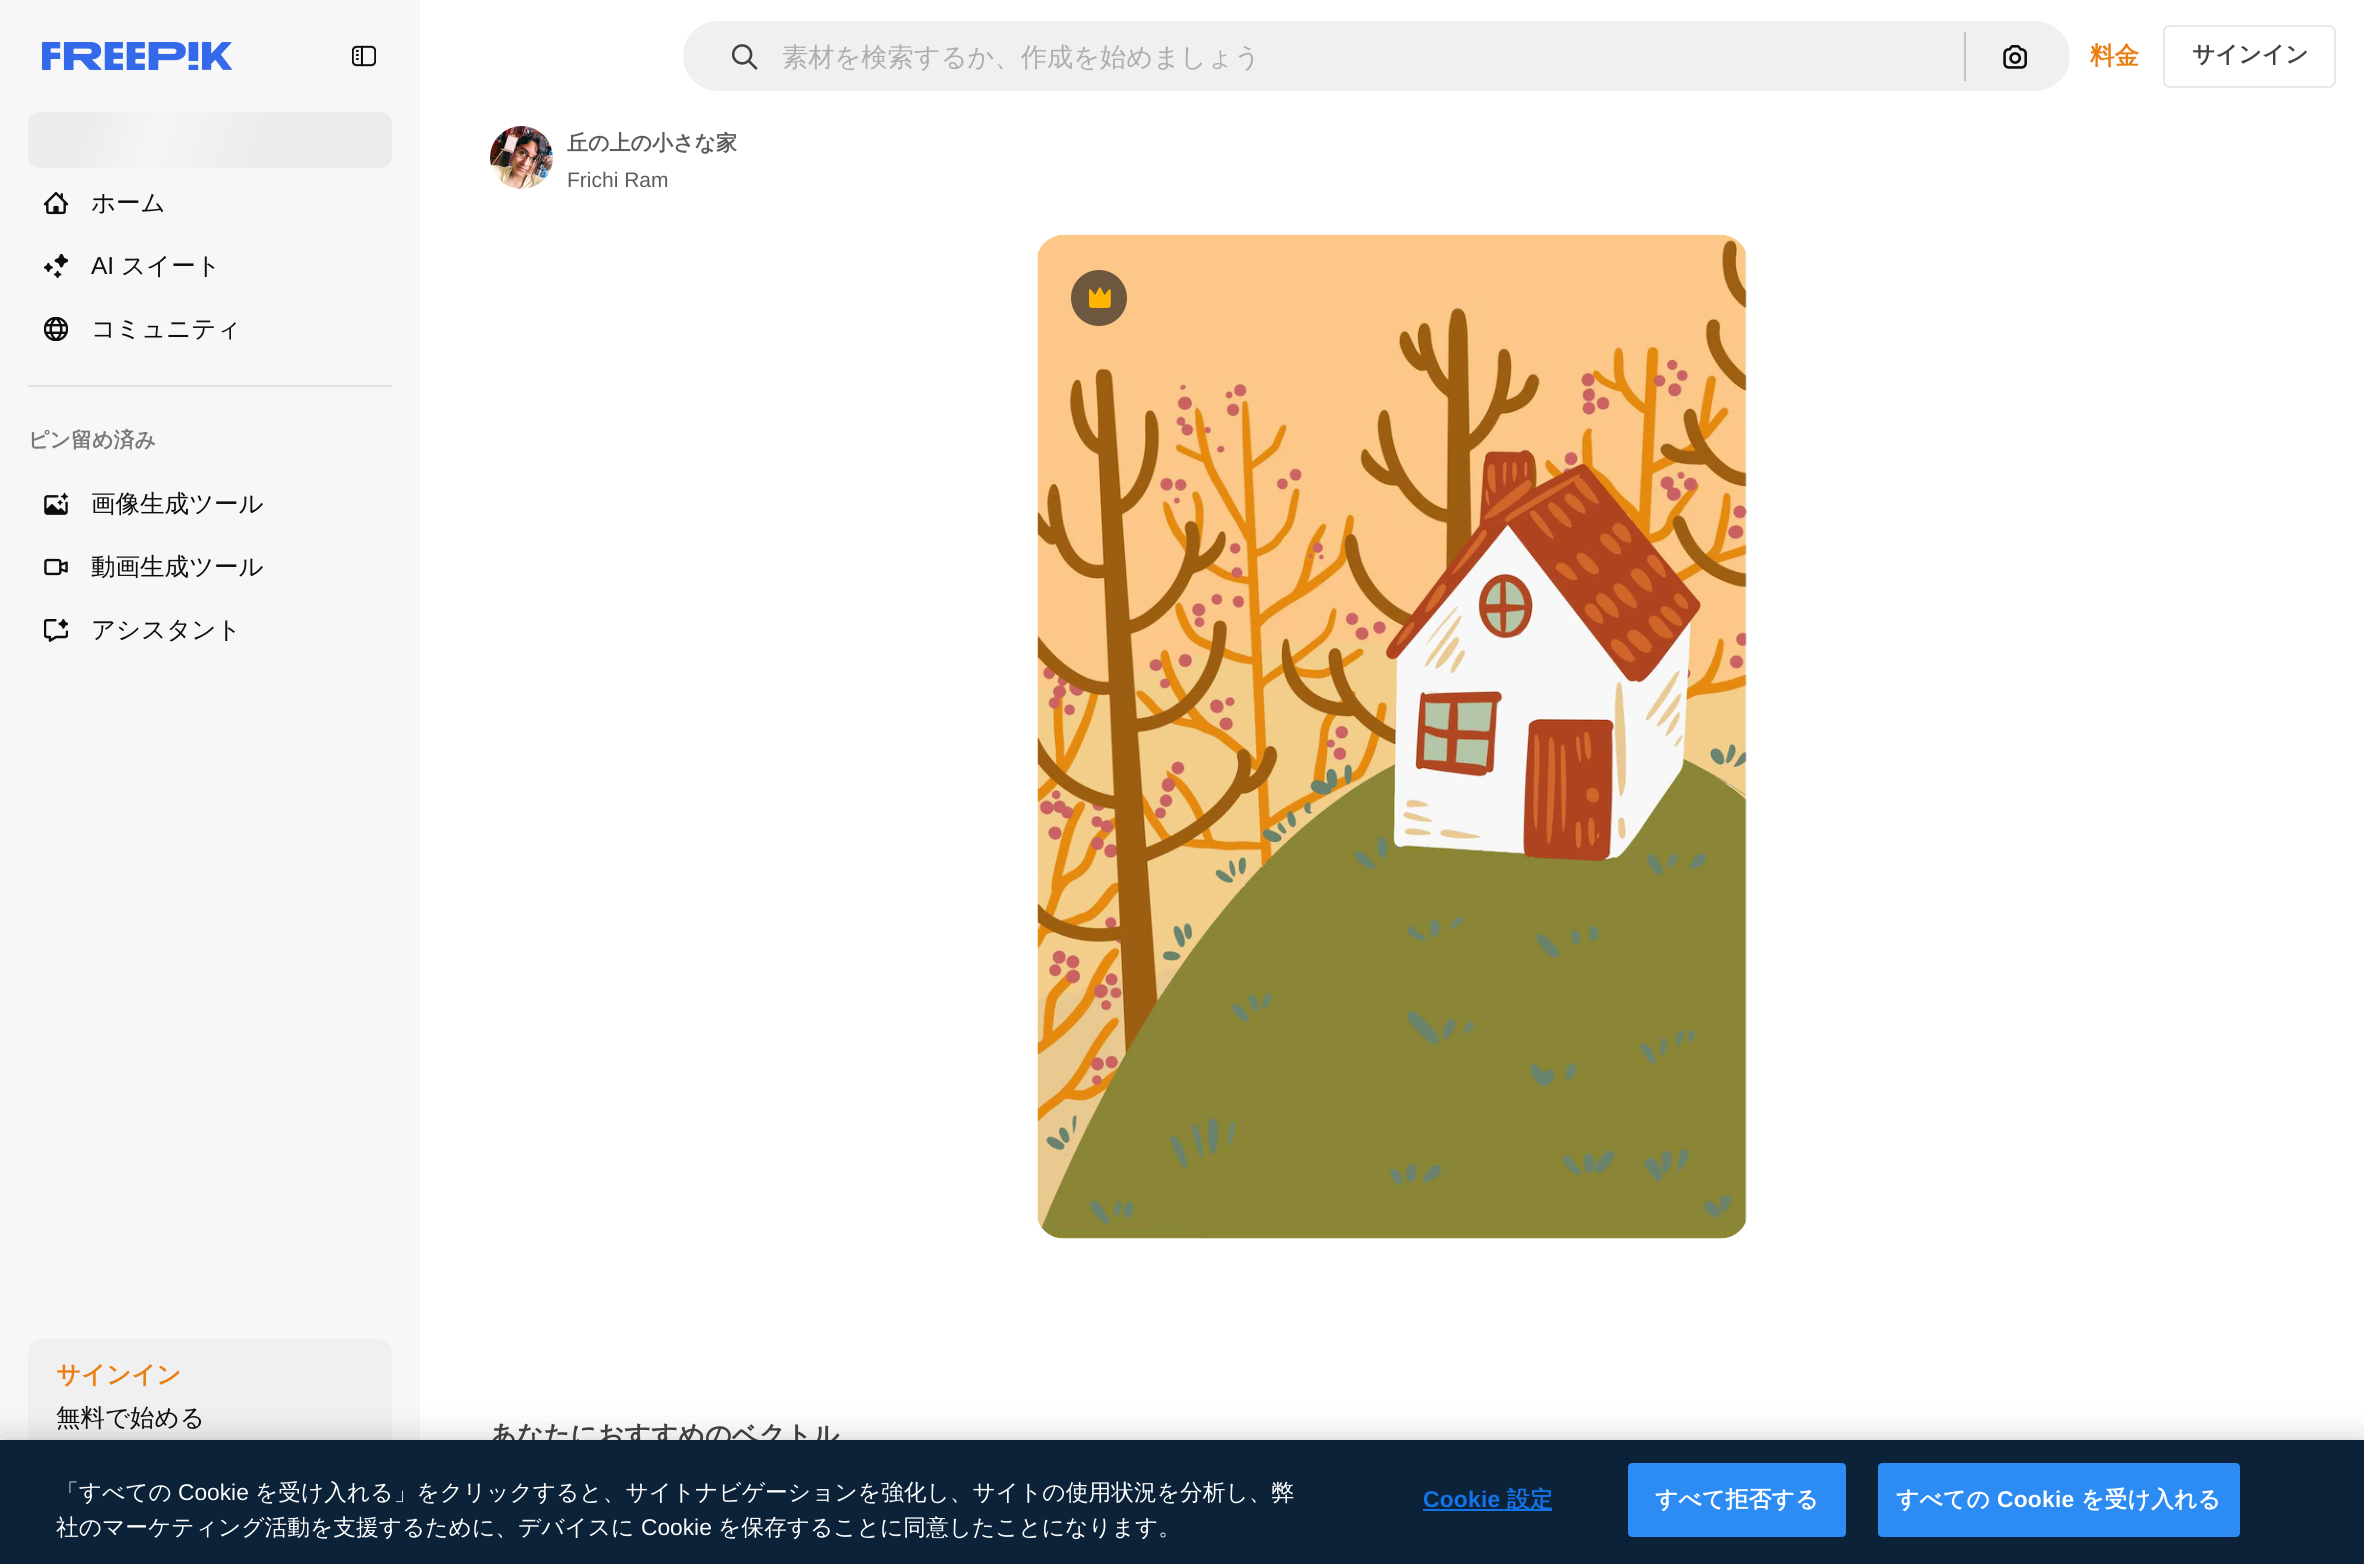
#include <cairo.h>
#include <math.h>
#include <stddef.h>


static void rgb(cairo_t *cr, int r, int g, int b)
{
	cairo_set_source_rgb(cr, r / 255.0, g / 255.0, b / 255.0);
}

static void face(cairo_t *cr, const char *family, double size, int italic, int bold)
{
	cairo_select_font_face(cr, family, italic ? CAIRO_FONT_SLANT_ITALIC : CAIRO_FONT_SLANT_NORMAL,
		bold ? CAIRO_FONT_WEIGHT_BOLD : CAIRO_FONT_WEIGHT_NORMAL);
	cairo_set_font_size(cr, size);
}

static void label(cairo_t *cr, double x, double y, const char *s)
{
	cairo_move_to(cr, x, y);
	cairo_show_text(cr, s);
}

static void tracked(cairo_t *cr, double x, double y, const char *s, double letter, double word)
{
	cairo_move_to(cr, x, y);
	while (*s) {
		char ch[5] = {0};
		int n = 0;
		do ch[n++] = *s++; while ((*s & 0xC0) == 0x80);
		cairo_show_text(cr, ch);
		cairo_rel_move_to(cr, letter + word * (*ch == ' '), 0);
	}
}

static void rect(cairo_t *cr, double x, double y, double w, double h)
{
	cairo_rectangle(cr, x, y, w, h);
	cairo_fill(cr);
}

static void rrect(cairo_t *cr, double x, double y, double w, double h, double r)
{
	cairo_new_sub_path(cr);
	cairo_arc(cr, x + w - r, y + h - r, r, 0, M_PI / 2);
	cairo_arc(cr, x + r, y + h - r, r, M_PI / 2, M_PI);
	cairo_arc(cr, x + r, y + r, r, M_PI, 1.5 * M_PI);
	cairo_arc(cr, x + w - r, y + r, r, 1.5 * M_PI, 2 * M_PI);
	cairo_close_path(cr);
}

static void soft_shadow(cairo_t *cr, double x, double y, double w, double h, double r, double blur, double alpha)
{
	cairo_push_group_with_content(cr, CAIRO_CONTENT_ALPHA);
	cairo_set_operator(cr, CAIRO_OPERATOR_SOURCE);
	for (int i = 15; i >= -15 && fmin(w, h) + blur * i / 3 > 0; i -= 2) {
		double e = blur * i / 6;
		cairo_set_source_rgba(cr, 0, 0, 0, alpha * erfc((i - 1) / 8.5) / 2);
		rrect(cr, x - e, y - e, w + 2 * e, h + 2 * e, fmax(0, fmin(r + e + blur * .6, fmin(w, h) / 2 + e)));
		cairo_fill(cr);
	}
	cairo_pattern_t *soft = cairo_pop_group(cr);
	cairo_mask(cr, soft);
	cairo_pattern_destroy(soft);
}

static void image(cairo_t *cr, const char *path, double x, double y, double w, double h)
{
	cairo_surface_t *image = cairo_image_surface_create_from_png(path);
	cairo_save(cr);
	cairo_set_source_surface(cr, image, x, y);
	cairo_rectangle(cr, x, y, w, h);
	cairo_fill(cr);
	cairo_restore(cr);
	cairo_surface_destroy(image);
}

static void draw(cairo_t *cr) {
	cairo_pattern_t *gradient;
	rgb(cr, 255, 255, 255);
	cairo_paint(cr);
	rgb(cr, 247, 247, 247);
	rect(cr, 0, 0, 420, 1440);
	image(cr, "image0.png", 42, 42, 190, 28);
	image(cr, "image1.png", 352, 45, 24, 22);
	gradient = cairo_pattern_create_linear(62, 20, 722, 260);
	cairo_pattern_add_color_stop_rgba(gradient, 0.08, 0.925, 0.925, 0.925, 1);
	cairo_pattern_add_color_stop_rgba(gradient, 0.18, 0.961, 0.961, 0.961, 1);
	cairo_pattern_add_color_stop_rgba(gradient, 0.33, 0.925, 0.925, 0.925, 1);
	cairo_set_source(cr, gradient);
	cairo_pattern_destroy(gradient);
	rrect(cr, 28, 112, 364, 56, 11);
	cairo_fill(cr);
	image(cr, "image2.png", 44, 192, 24, 23);
	face(cr, "WenQuanYi Zen Hei Medium", 24.5, 0, 0);
	rgb(cr, 13, 13, 13);
	label(cr, 91, 211, "ホーム");
	image(cr, "image3.png", 44, 254, 24, 24);
	face(cr, "Liberation Sans", 24.5, 0, 0);
	label(cr, 91, 274, "AI");
	face(cr, "WenQuanYi Zen Hei Medium", 24.5, 0, 0);
	label(cr, 121, 274, "スイート");
	image(cr, "image4.png", 44, 317, 24, 24);
	label(cr, 91, 337, "コミュニティ");
	rgb(cr, 224, 224, 224);
	rect(cr, 28, 385, 364, 2);
	face(cr, "WenQuanYi Zen Hei", 21, 0, 1);
	rgb(cr, 120, 120, 120);
	label(cr, 28, 447, "ピン留め済み");
	image(cr, "image5.png", 44, 492, 24, 23);
	face(cr, "WenQuanYi Zen Hei Medium", 24.5, 0, 0);
	rgb(cr, 13, 13, 13);
	label(cr, 91, 512, "画像生成ツール");
	image(cr, "image6.png", 44, 558, 24, 18);
	label(cr, 91, 575, "動画生成ツール");
	image(cr, "image7.png", 44, 619, 24, 23);
	label(cr, 91, 638, "アシスタント");
	rgb(cr, 240, 240, 240);
	rrect(cr, 28, 1339, 364, 114, 14);
	cairo_fill(cr);
	face(cr, "WenQuanYi Zen Hei", 24.5, 0, 1);
	rgb(cr, 234, 126, 17);
	label(cr, 56, 1383, "サインイン");
	face(cr, "WenQuanYi Zen Hei Medium", 24.5, 0, 0);
	rgb(cr, 13, 13, 13);
	label(cr, 56, 1426, "無料で始める");
	rgb(cr, 240, 240, 240);
	rrect(cr, 682, 20, 1389, 72, 36);
	cairo_fill_preserve(cr);
	rgb(cr, 255, 255, 255);
	cairo_stroke(cr);
	image(cr, "image8.png", 732, 44, 26, 26);
	face(cr, "WenQuanYi Zen Hei Medium", 26.25, 0, 0);
	rgb(cr, 173, 173, 173);
	label(cr, 782, 66, "素材を検索するか、作成を始めましょう");
	rgb(cr, 195, 195, 195);
	rect(cr, 1964, 32, 2, 49);
	image(cr, "image9.png", 2003, 45, 24, 24);
	face(cr, "WenQuanYi Zen Hei", 24.5, 0, 1);
	rgb(cr, 234, 126, 17);
	label(cr, 2090, 64, "料金");
	rrect(cr, 2164, 26, 171, 61, 6);
	rgb(cr, 231, 231, 231);
	cairo_stroke(cr);
	face(cr, "WenQuanYi Zen Hei", 22.75, 0, 1);
	rgb(cr, 66, 66, 66);
	label(cr, 2192, 62, "サインイン");
	image(cr, "image10.png", 490, 126, 63, 63);
	face(cr, "WenQuanYi Zen Hei", 21, 0, 1);
	rgb(cr, 92, 92, 92);
	label(cr, 567, 150, "丘の上の小さな家");
	face(cr, "Liberation Sans", 21, 0, 0);
	label(cr, 567, 187, "Frichi Ram");
	image(cr, "image11.png", 1037, 234, 710, 1005);
	rgb(cr, 109, 87, 63);
	cairo_arc(cr, 1099, 298, 28, 0, 2 * M_PI);
	cairo_fill(cr);
	image(cr, "image12.png", 1089, 287, 22, 21);
	face(cr, "WenQuanYi Zen Hei", 26.25, 0, 1);
	rgb(cr, 66, 66, 66);
	label(cr, 490, 1444, "あなたにおすすめのベクトル");
	rgb(cr, 0, 0, 0);
	soft_shadow(cr, 0, 1440, 2364, 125, 0, 16, 0.2);
	rgb(cr, 11, 34, 57);
	rect(cr, 0, 1440, 2364, 124);
	face(cr, "WenQuanYi Zen Hei Medium", 22.75, 0, 0);
	rgb(cr, 255, 255, 255);
	label(cr, 56, 1500, "「すべての");
	face(cr, "Liberation Sans", 22.75, 0, 0);
	label(cr, 178, 1500, "Cookie");
	face(cr, "WenQuanYi Zen Hei Medium", 22.75, 0, 0);
	label(cr, 255, 1500, "を受け入れる」をクリックすると、サイトナビゲーションを強化し、サイトの使用状況を分析し、弊");
	label(cr, 56, 1535, "社のマーケティング活動を支援するために、デバイスに");
	face(cr, "Liberation Sans", 22.75, 0, 0);
	label(cr, 641, 1535, "Cookie");
	face(cr, "WenQuanYi Zen Hei Medium", 22.75, 0, 0);
	label(cr, 718, 1535, "を保存することに同意したことになります。");
	face(cr, "Liberation Sans", 22.75, 0, 1);
	rgb(cr, 18, 115, 235);
	tracked(cr, 1423, 1507, "Cookie", 0.25, 0);
	rect(cr, 1423, 1509, 129, 2);
	face(cr, "WenQuanYi Zen Hei", 22.75, 0, 1);
	tracked(cr, 1507, 1507, "設定", 0.25, 0);
	rgb(cr, 44, 140, 244);
	rrect(cr, 1629, 1464, 216, 72, 3);
	cairo_fill_preserve(cr);
	cairo_stroke(cr);
	rgb(cr, 255, 255, 255);
	tracked(cr, 1655, 1507, "すべて拒否する", 0.25, 0);
	rgb(cr, 44, 140, 244);
	rrect(cr, 1879, 1464, 360, 72, 3);
	cairo_fill_preserve(cr);
	cairo_stroke(cr);
	rgb(cr, 255, 255, 255);
	tracked(cr, 1896, 1507, "すべての", 0.25, 0);
	face(cr, "Liberation Sans", 22.75, 0, 1);
	tracked(cr, 1997, 1507, "Cookie", 0.25, 0);
	face(cr, "WenQuanYi Zen Hei", 22.75, 0, 1);
	tracked(cr, 2081, 1507, "を受け入れる", 0.25, 0);
}

int main(void) {
	cairo_surface_t *surface = cairo_image_surface_create(CAIRO_FORMAT_RGB24, 2364, 1564);
	cairo_t *cr = cairo_create(surface);
	cairo_font_options_t *options = cairo_font_options_create();
	cairo_font_options_set_hint_metrics(options, CAIRO_HINT_METRICS_OFF);
	cairo_font_options_set_hint_style(options, CAIRO_HINT_STYLE_NONE);
	cairo_set_font_options(cr, options);
	cairo_set_miter_limit(cr, 4);
	draw(cr);
	cairo_surface_write_to_png(surface, "render.png");
	cairo_font_options_destroy(options);
	cairo_destroy(cr);
	cairo_surface_destroy(surface);
	return 0;
}
